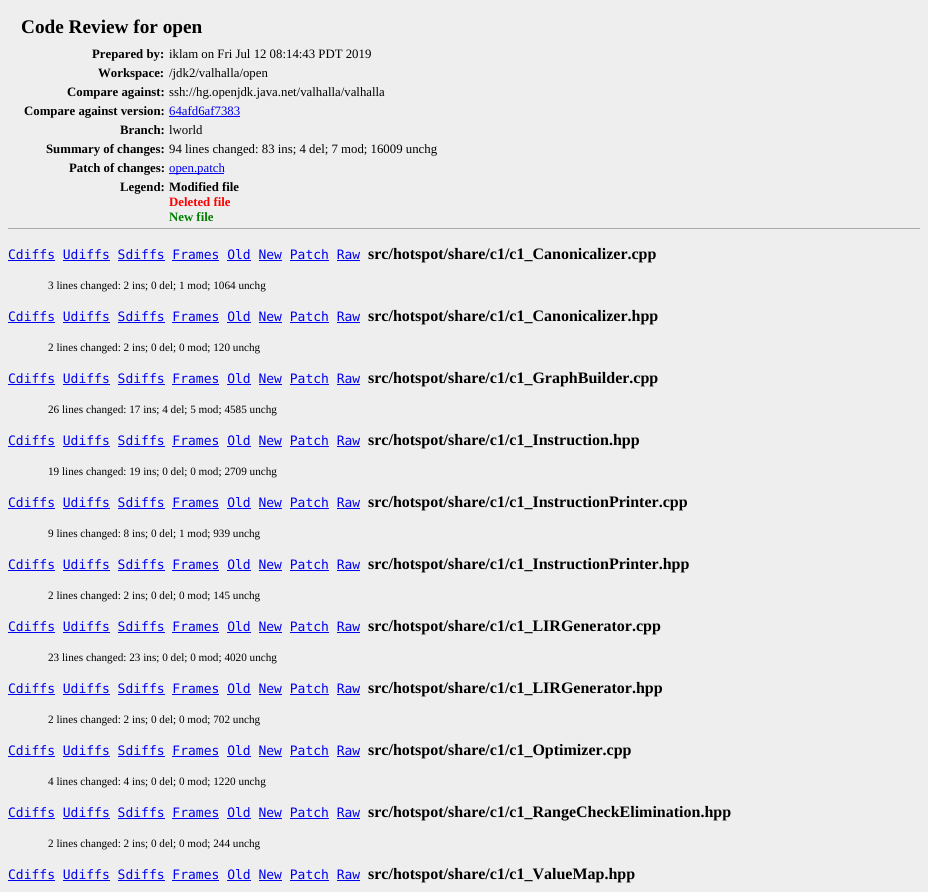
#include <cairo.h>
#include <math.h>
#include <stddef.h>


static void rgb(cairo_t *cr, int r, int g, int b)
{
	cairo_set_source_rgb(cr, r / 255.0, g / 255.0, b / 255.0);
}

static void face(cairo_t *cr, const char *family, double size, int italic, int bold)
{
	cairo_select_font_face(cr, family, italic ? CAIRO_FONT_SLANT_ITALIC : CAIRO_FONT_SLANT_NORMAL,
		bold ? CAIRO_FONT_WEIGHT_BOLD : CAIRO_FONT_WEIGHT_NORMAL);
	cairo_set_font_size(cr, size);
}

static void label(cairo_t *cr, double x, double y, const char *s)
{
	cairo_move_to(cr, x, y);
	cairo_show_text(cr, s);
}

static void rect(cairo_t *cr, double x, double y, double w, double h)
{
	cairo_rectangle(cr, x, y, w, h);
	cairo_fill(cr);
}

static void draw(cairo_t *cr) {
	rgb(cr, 238, 238, 238);
	cairo_paint(cr);
	rgb(cr, 170, 170, 170);
	rect(cr, 8, 228, 912, 1);
	face(cr, "Liberation Serif", 19.25, 0, 1);
	rgb(cr, 0, 0, 0);
	label(cr, 21, 33, "Code Review for open");
	face(cr, "Liberation Serif", 12.8, 0, 1);
	label(cr, 92, 58, "Prepared by:");
	face(cr, "Liberation Serif", 12.8, 0, 0);
	label(cr, 169, 58, "iklam on Fri Jul 12 08:14:43 PDT 2019");
	face(cr, "Liberation Serif", 12.8, 0, 1);
	label(cr, 98, 77, "Workspace:");
	face(cr, "Liberation Serif", 12.8, 0, 0);
	label(cr, 169, 77, "/jdk2/valhalla/open");
	face(cr, "Liberation Serif", 12.8, 0, 1);
	label(cr, 67, 96, "Compare against:");
	face(cr, "Liberation Serif", 12.8, 0, 0);
	label(cr, 169, 96, "ssh://hg.openjdk.java.net/valhalla/valhalla");
	face(cr, "Liberation Serif", 12.8, 0, 1);
	label(cr, 24, 115, "Compare against version:");
	face(cr, "Liberation Serif", 12.8, 0, 0);
	rgb(cr, 0, 0, 238);
	label(cr, 169, 115, "64afd6af7383");
	rect(cr, 169, 116, 71, 1);
	face(cr, "Liberation Serif", 12.8, 0, 1);
	rgb(cr, 0, 0, 0);
	label(cr, 120, 134, "Branch:");
	face(cr, "Liberation Serif", 12.8, 0, 0);
	label(cr, 169, 134, "lworld");
	face(cr, "Liberation Serif", 12.8, 0, 1);
	label(cr, 46, 153, "Summary of changes:");
	face(cr, "Liberation Serif", 12.8, 0, 0);
	label(cr, 169, 153, "94 lines changed: 83 ins; 4 del; 7 mod; 16009 unchg");
	face(cr, "Liberation Serif", 12.8, 0, 1);
	label(cr, 69, 172, "Patch of changes:");
	rgb(cr, 0, 0, 238);
	rect(cr, 169, 173, 55, 1);
	face(cr, "Liberation Serif", 12.8, 0, 0);
	label(cr, 169, 172, "open.patch");
	face(cr, "Liberation Serif", 12.8, 0, 1);
	rgb(cr, 0, 0, 0);
	label(cr, 120, 191, "Legend:");
	label(cr, 169, 191, "Modified file");
	rgb(cr, 255, 0, 0);
	label(cr, 169, 206, "Deleted file");
	rgb(cr, 0, 128, 0);
	label(cr, 169, 221, "New file");
	face(cr, "DejaVu Sans Mono", 13, 0, 0);
	rgb(cr, 0, 0, 238);
	label(cr, 8, 259, "Cdiffs Udiffs Sdiffs Frames Old New Patch Raw");
	rect(cr, 8, 260, 47, 1);
	rect(cr, 63, 260, 47, 1);
	rect(cr, 118, 260, 47, 1);
	rect(cr, 172, 260, 47, 1);
	rect(cr, 227, 260, 24, 1);
	rect(cr, 259, 260, 23, 1);
	rect(cr, 290, 260, 39, 1);
	rect(cr, 337, 260, 23, 1);
	face(cr, "Liberation Serif", 16, 0, 1);
	rgb(cr, 0, 0, 0);
	label(cr, 368, 259, "src/hotspot/share/c1/c1_Canonicalizer.cpp");
	face(cr, "Liberation Serif", 11.2, 0, 0);
	label(cr, 48, 289, "3 lines changed: 2 ins; 0 del; 1 mod; 1064 unchg");
	face(cr, "DejaVu Sans Mono", 13, 0, 0);
	rgb(cr, 0, 0, 238);
	label(cr, 8, 321, "Cdiffs Udiffs Sdiffs Frames Old New Patch Raw");
	rect(cr, 8, 322, 47, 1);
	rect(cr, 63, 322, 47, 1);
	rect(cr, 118, 322, 47, 1);
	rect(cr, 172, 322, 47, 1);
	rect(cr, 227, 322, 24, 1);
	rect(cr, 259, 322, 23, 1);
	rect(cr, 290, 322, 39, 1);
	rect(cr, 337, 322, 23, 1);
	face(cr, "Liberation Serif", 16, 0, 1);
	rgb(cr, 0, 0, 0);
	label(cr, 368, 321, "src/hotspot/share/c1/c1_Canonicalizer.hpp");
	face(cr, "Liberation Serif", 11.2, 0, 0);
	label(cr, 48, 351, "2 lines changed: 2 ins; 0 del; 0 mod; 120 unchg");
	face(cr, "DejaVu Sans Mono", 13, 0, 0);
	rgb(cr, 0, 0, 238);
	label(cr, 8, 383, "Cdiffs Udiffs Sdiffs Frames Old New Patch Raw");
	rect(cr, 8, 384, 47, 1);
	rect(cr, 63, 384, 47, 1);
	rect(cr, 118, 384, 47, 1);
	rect(cr, 172, 384, 47, 1);
	rect(cr, 227, 384, 24, 1);
	rect(cr, 259, 384, 23, 1);
	rect(cr, 290, 384, 39, 1);
	rect(cr, 337, 384, 23, 1);
	face(cr, "Liberation Serif", 16, 0, 1);
	rgb(cr, 0, 0, 0);
	label(cr, 368, 383, "src/hotspot/share/c1/c1_GraphBuilder.cpp");
	face(cr, "Liberation Serif", 11.2, 0, 0);
	label(cr, 48, 413, "26 lines changed: 17 ins; 4 del; 5 mod; 4585 unchg");
	face(cr, "DejaVu Sans Mono", 13, 0, 0);
	rgb(cr, 0, 0, 238);
	label(cr, 8, 445, "Cdiffs Udiffs Sdiffs Frames Old New Patch Raw");
	rect(cr, 8, 446, 47, 1);
	rect(cr, 63, 446, 47, 1);
	rect(cr, 118, 446, 47, 1);
	rect(cr, 172, 446, 47, 1);
	rect(cr, 227, 446, 24, 1);
	rect(cr, 259, 446, 23, 1);
	rect(cr, 290, 446, 39, 1);
	rect(cr, 337, 446, 23, 1);
	face(cr, "Liberation Serif", 16, 0, 1);
	rgb(cr, 0, 0, 0);
	label(cr, 368, 445, "src/hotspot/share/c1/c1_Instruction.hpp");
	face(cr, "Liberation Serif", 11.2, 0, 0);
	label(cr, 48, 475, "19 lines changed: 19 ins; 0 del; 0 mod; 2709 unchg");
	face(cr, "DejaVu Sans Mono", 13, 0, 0);
	rgb(cr, 0, 0, 238);
	label(cr, 8, 507, "Cdiffs Udiffs Sdiffs Frames Old New Patch Raw");
	rect(cr, 8, 508, 47, 1);
	rect(cr, 63, 508, 47, 1);
	rect(cr, 118, 508, 47, 1);
	rect(cr, 172, 508, 47, 1);
	rect(cr, 227, 508, 24, 1);
	rect(cr, 259, 508, 23, 1);
	rect(cr, 290, 508, 39, 1);
	rect(cr, 337, 508, 23, 1);
	face(cr, "Liberation Serif", 16, 0, 1);
	rgb(cr, 0, 0, 0);
	label(cr, 368, 507, "src/hotspot/share/c1/c1_InstructionPrinter.cpp");
	face(cr, "Liberation Serif", 11.2, 0, 0);
	label(cr, 48, 537, "9 lines changed: 8 ins; 0 del; 1 mod; 939 unchg");
	face(cr, "DejaVu Sans Mono", 13, 0, 0);
	rgb(cr, 0, 0, 238);
	label(cr, 8, 569, "Cdiffs Udiffs Sdiffs Frames Old New Patch Raw");
	rect(cr, 8, 570, 47, 1);
	rect(cr, 63, 570, 47, 1);
	rect(cr, 118, 570, 47, 1);
	rect(cr, 172, 570, 47, 1);
	rect(cr, 227, 570, 24, 1);
	rect(cr, 259, 570, 23, 1);
	rect(cr, 290, 570, 39, 1);
	rect(cr, 337, 570, 23, 1);
	face(cr, "Liberation Serif", 16, 0, 1);
	rgb(cr, 0, 0, 0);
	label(cr, 368, 569, "src/hotspot/share/c1/c1_InstructionPrinter.hpp");
	face(cr, "Liberation Serif", 11.2, 0, 0);
	label(cr, 48, 599, "2 lines changed: 2 ins; 0 del; 0 mod; 145 unchg");
	face(cr, "DejaVu Sans Mono", 13, 0, 0);
	rgb(cr, 0, 0, 238);
	label(cr, 8, 631, "Cdiffs Udiffs Sdiffs Frames Old New Patch Raw");
	rect(cr, 8, 632, 47, 1);
	rect(cr, 63, 632, 47, 1);
	rect(cr, 118, 632, 47, 1);
	rect(cr, 172, 632, 47, 1);
	rect(cr, 227, 632, 24, 1);
	rect(cr, 259, 632, 23, 1);
	rect(cr, 290, 632, 39, 1);
	rect(cr, 337, 632, 23, 1);
	face(cr, "Liberation Serif", 16, 0, 1);
	rgb(cr, 0, 0, 0);
	label(cr, 368, 631, "src/hotspot/share/c1/c1_LIRGenerator.cpp");
	face(cr, "Liberation Serif", 11.2, 0, 0);
	label(cr, 48, 661, "23 lines changed: 23 ins; 0 del; 0 mod; 4020 unchg");
	face(cr, "DejaVu Sans Mono", 13, 0, 0);
	rgb(cr, 0, 0, 238);
	label(cr, 8, 693, "Cdiffs Udiffs Sdiffs Frames Old New Patch Raw");
	rect(cr, 8, 694, 47, 1);
	rect(cr, 63, 694, 47, 1);
	rect(cr, 118, 694, 47, 1);
	rect(cr, 172, 694, 47, 1);
	rect(cr, 227, 694, 24, 1);
	rect(cr, 259, 694, 23, 1);
	rect(cr, 290, 694, 39, 1);
	rect(cr, 337, 694, 23, 1);
	face(cr, "Liberation Serif", 16, 0, 1);
	rgb(cr, 0, 0, 0);
	label(cr, 368, 693, "src/hotspot/share/c1/c1_LIRGenerator.hpp");
	face(cr, "Liberation Serif", 11.2, 0, 0);
	label(cr, 48, 723, "2 lines changed: 2 ins; 0 del; 0 mod; 702 unchg");
	face(cr, "DejaVu Sans Mono", 13, 0, 0);
	rgb(cr, 0, 0, 238);
	label(cr, 8, 755, "Cdiffs Udiffs Sdiffs Frames Old New Patch Raw");
	rect(cr, 8, 756, 47, 1);
	rect(cr, 63, 756, 47, 1);
	rect(cr, 118, 756, 47, 1);
	rect(cr, 172, 756, 47, 1);
	rect(cr, 227, 756, 24, 1);
	rect(cr, 259, 756, 23, 1);
	rect(cr, 290, 756, 39, 1);
	rect(cr, 337, 756, 23, 1);
	face(cr, "Liberation Serif", 16, 0, 1);
	rgb(cr, 0, 0, 0);
	label(cr, 368, 755, "src/hotspot/share/c1/c1_Optimizer.cpp");
	face(cr, "Liberation Serif", 11.2, 0, 0);
	label(cr, 48, 785, "4 lines changed: 4 ins; 0 del; 0 mod; 1220 unchg");
	face(cr, "DejaVu Sans Mono", 13, 0, 0);
	rgb(cr, 0, 0, 238);
	label(cr, 8, 817, "Cdiffs Udiffs Sdiffs Frames Old New Patch Raw");
	rect(cr, 8, 818, 47, 1);
	rect(cr, 63, 818, 47, 1);
	rect(cr, 118, 818, 47, 1);
	rect(cr, 172, 818, 47, 1);
	rect(cr, 227, 818, 24, 1);
	rect(cr, 259, 818, 23, 1);
	rect(cr, 290, 818, 39, 1);
	rect(cr, 337, 818, 23, 1);
	face(cr, "Liberation Serif", 16, 0, 1);
	rgb(cr, 0, 0, 0);
	label(cr, 368, 817, "src/hotspot/share/c1/c1_RangeCheckElimination.hpp");
	face(cr, "Liberation Serif", 11.2, 0, 0);
	label(cr, 48, 847, "2 lines changed: 2 ins; 0 del; 0 mod; 244 unchg");
	face(cr, "DejaVu Sans Mono", 13, 0, 0);
	rgb(cr, 0, 0, 238);
	label(cr, 8, 879, "Cdiffs Udiffs Sdiffs Frames Old New Patch Raw");
	rect(cr, 8, 880, 47, 1);
	rect(cr, 63, 880, 47, 1);
	rect(cr, 118, 880, 47, 1);
	rect(cr, 172, 880, 47, 1);
	rect(cr, 227, 880, 24, 1);
	rect(cr, 259, 880, 23, 1);
	rect(cr, 290, 880, 39, 1);
	rect(cr, 337, 880, 23, 1);
	face(cr, "Liberation Serif", 16, 0, 1);
	rgb(cr, 0, 0, 0);
	label(cr, 368, 879, "src/hotspot/share/c1/c1_ValueMap.hpp");
}

int main(void) {
	cairo_surface_t *surface = cairo_image_surface_create(CAIRO_FORMAT_RGB24, 928, 892);
	cairo_t *cr = cairo_create(surface);
	cairo_font_options_t *options = cairo_font_options_create();
	cairo_font_options_set_hint_metrics(options, CAIRO_HINT_METRICS_OFF);
	cairo_font_options_set_hint_style(options, CAIRO_HINT_STYLE_NONE);
	cairo_set_font_options(cr, options);
	cairo_set_miter_limit(cr, 4);
	draw(cr);
	cairo_surface_write_to_png(surface, "render.png");
	cairo_font_options_destroy(options);
	cairo_destroy(cr);
	cairo_surface_destroy(surface);
	return 0;
}
